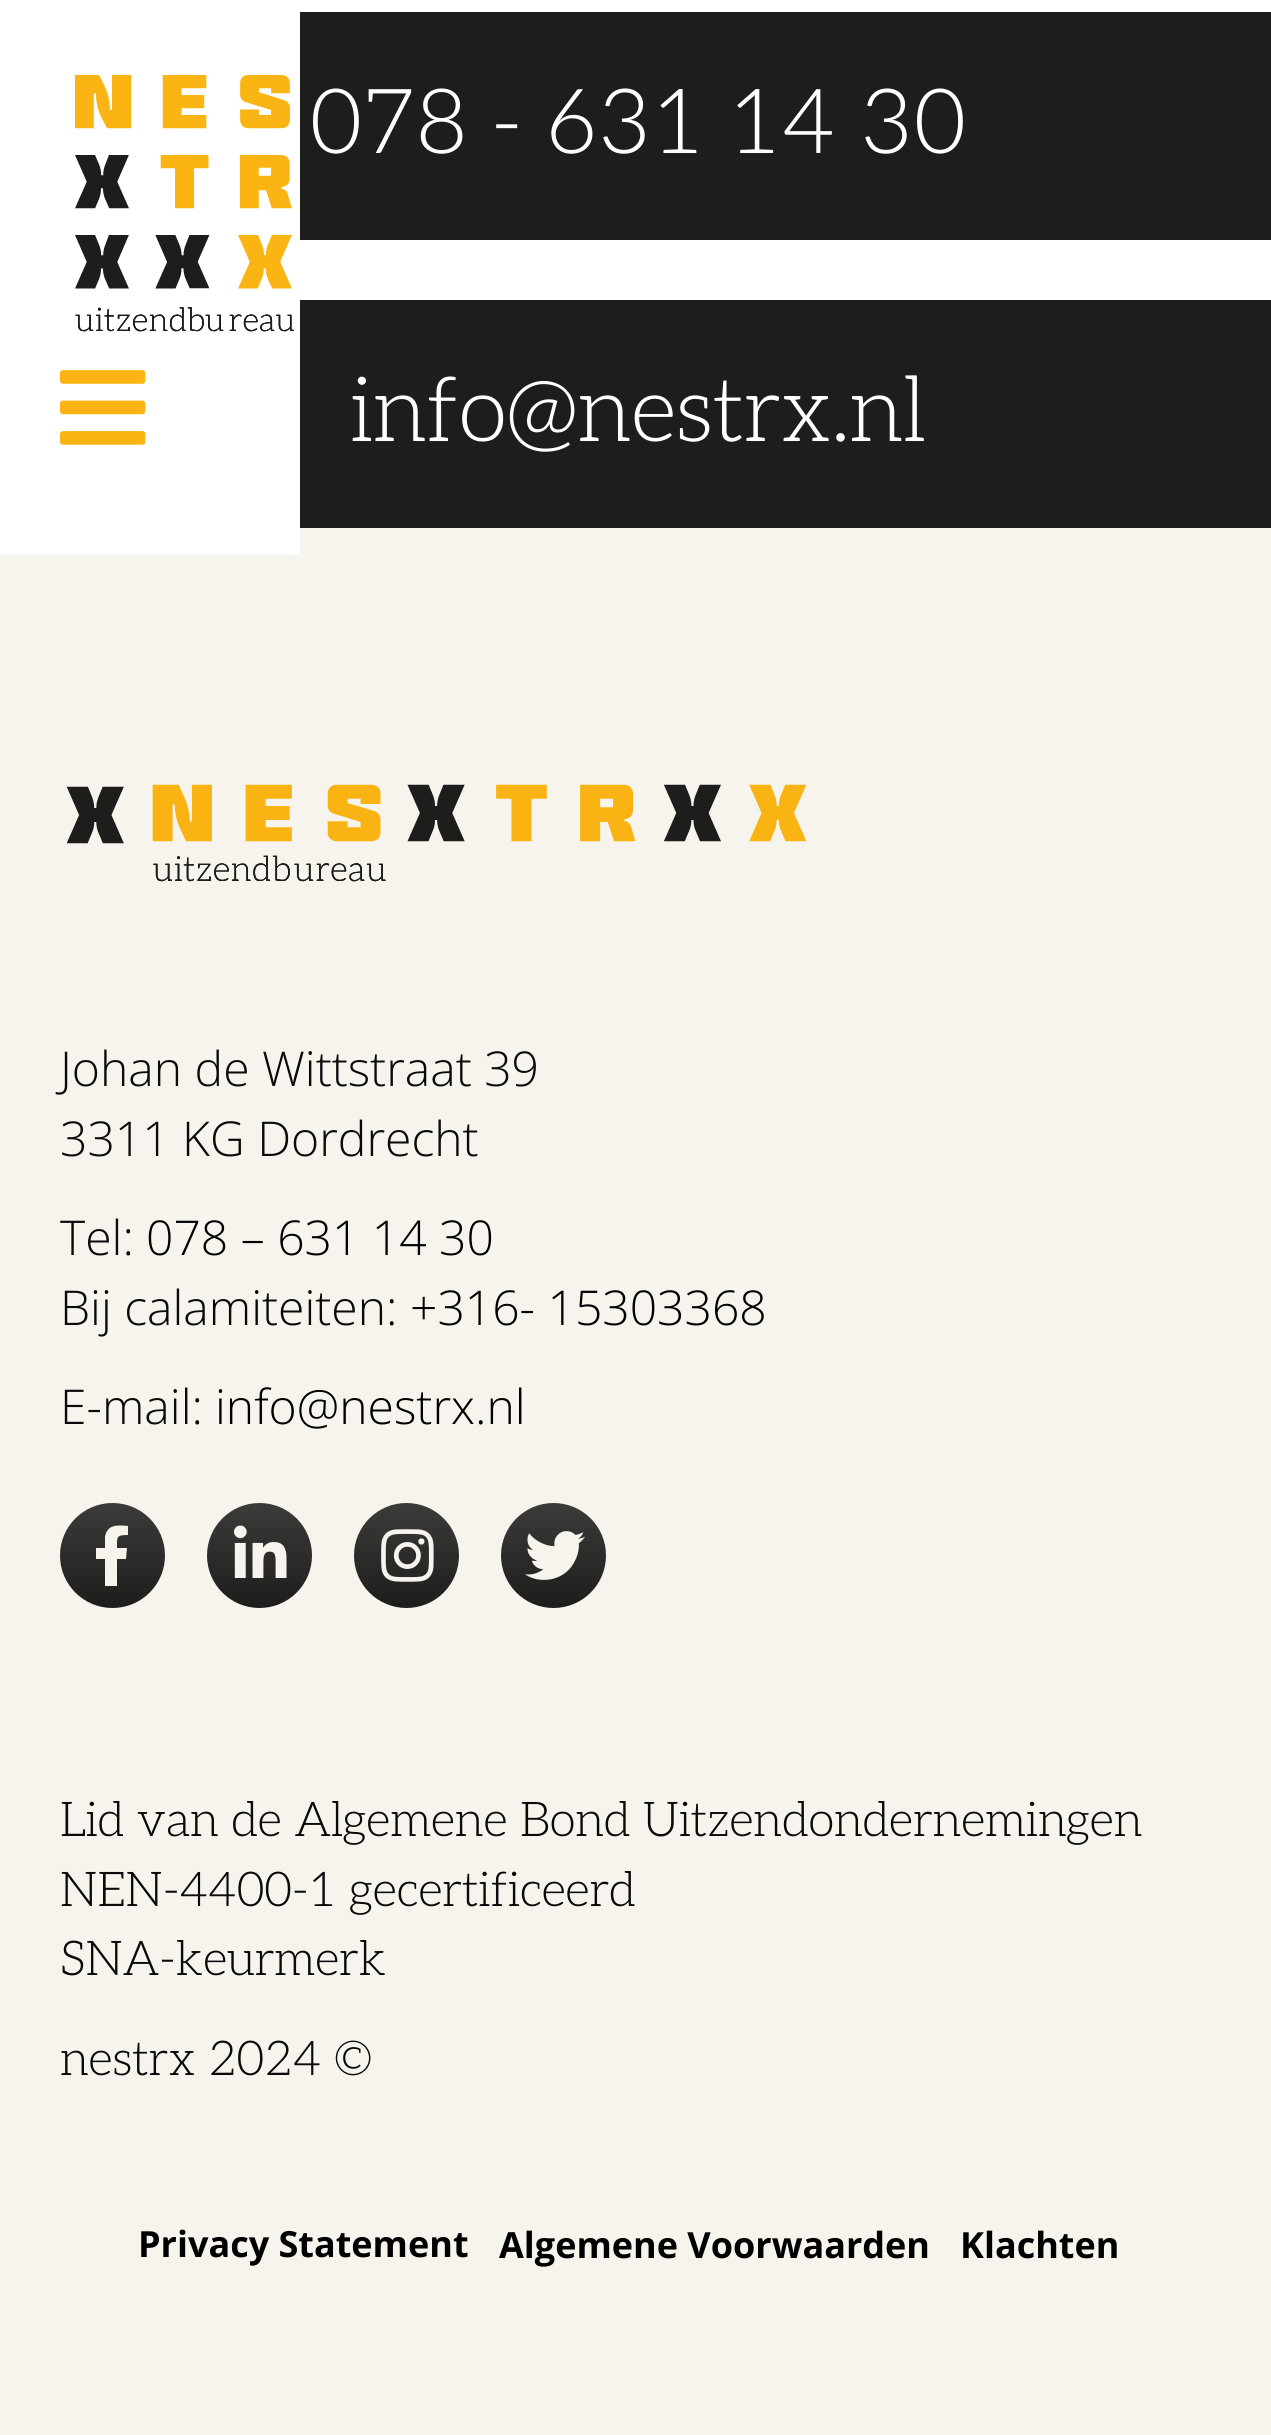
#include <cairo.h>
#include <math.h>
#include <stddef.h>


static void rgb(cairo_t *cr, int r, int g, int b)
{
	cairo_set_source_rgb(cr, r / 255.0, g / 255.0, b / 255.0);
}

static void face(cairo_t *cr, const char *family, double size, int italic, int bold)
{
	cairo_select_font_face(cr, family, italic ? CAIRO_FONT_SLANT_ITALIC : CAIRO_FONT_SLANT_NORMAL,
		bold ? CAIRO_FONT_WEIGHT_BOLD : CAIRO_FONT_WEIGHT_NORMAL);
	cairo_set_font_size(cr, size);
}

static void label(cairo_t *cr, double x, double y, const char *s)
{
	cairo_move_to(cr, x, y);
	cairo_show_text(cr, s);
}

static void rect(cairo_t *cr, double x, double y, double w, double h)
{
	cairo_rectangle(cr, x, y, w, h);
	cairo_fill(cr);
}

static void image(cairo_t *cr, const char *path, double x, double y, double w, double h)
{
	cairo_surface_t *image = cairo_image_surface_create_from_png(path);
	cairo_save(cr);
	cairo_set_source_surface(cr, image, x, y);
	cairo_rectangle(cr, x, y, w, h);
	cairo_fill(cr);
	cairo_restore(cr);
	cairo_surface_destroy(image);
}

static void draw(cairo_t *cr) {
	cairo_pattern_t *gradient;
	rgb(cr, 255, 255, 255);
	cairo_paint(cr);
	rgb(cr, 246, 244, 237);
	rect(cr, 0, 528, 1271, 1907);
	rgb(cr, 255, 255, 255);
	rect(cr, 0, 528, 300, 27);
	image(cr, "image0.png", 75, 75, 219, 257);
	image(cr, "image1.png", 60, 370, 86, 75);
	rgb(cr, 29, 30, 27);
	rect(cr, 300, 12, 971, 228);
	face(cr, "Aleo Light", 90, 0, 0);
	rgb(cr, 255, 255, 255);
	label(cr, 310, 153, "078 - 631 14 30");
	rgb(cr, 29, 30, 27);
	rect(cr, 300, 300, 971, 228);
	rgb(cr, 255, 255, 255);
	label(cr, 350, 441, "info@nestrx.nl");
	image(cr, "image2.png", 66, 784, 741, 98);
	face(cr, "Open Sans Light", 48, 0, 0);
	rgb(cr, 10, 10, 10);
	label(cr, 60, 1086, "Johan de Wittstraat 39");
	label(cr, 60, 1156, "3311 KG Dordrecht");
	label(cr, 60, 1255, "Tel:");
	rgb(cr, 0, 0, 0);
	label(cr, 146, 1255, "078 – 631 14 30");
	rgb(cr, 10, 10, 10);
	label(cr, 60, 1325, "Bij calamiteiten:");
	rgb(cr, 0, 0, 0);
	label(cr, 410, 1325, "+316- 15303368");
	rgb(cr, 10, 10, 10);
	label(cr, 60, 1424, "E-mail:");
	rgb(cr, 0, 0, 0);
	label(cr, 215, 1424, "info@nestrx.nl");
	gradient = cairo_pattern_create_linear(113, 1503, 113, 1608);
	cairo_pattern_add_color_stop_rgba(gradient, 0, 0.231, 0.235, 0.224, 1);
	cairo_pattern_add_color_stop_rgba(gradient, 1, 0.114, 0.118, 0.106, 1);
	cairo_set_source(cr, gradient);
	cairo_pattern_destroy(gradient);
	cairo_new_path(cr);
	cairo_arc(cr, 112.5, 1555.5, 52.5, 0, 2 * M_PI);
	cairo_fill(cr);
	rgb(cr, 246, 244, 237);
	cairo_new_path(cr);
	cairo_move_to(cr, 126, 1559);
	cairo_line_to(cr, 117, 1559);
	cairo_line_to(cr, 117, 1586);
	cairo_line_to(cr, 105, 1586);
	cairo_line_to(cr, 105, 1559);
	cairo_line_to(cr, 96, 1559);
	cairo_line_to(cr, 96, 1548);
	cairo_line_to(cr, 105, 1548);
	cairo_line_to(cr, 105, 1537);
	cairo_curve_to(cr, 107, 1524, 118, 1525, 128, 1526);
	cairo_line_to(cr, 128, 1535);
	cairo_curve_to(cr, 116, 1535, 117, 1537, 117, 1548);
	cairo_line_to(cr, 127, 1548);
	cairo_close_path(cr);
	cairo_fill(cr);
	gradient = cairo_pattern_create_linear(260, 1503, 260, 1608);
	cairo_pattern_add_color_stop_rgba(gradient, 0, 0.231, 0.235, 0.224, 1);
	cairo_pattern_add_color_stop_rgba(gradient, 1, 0.114, 0.118, 0.106, 1);
	cairo_set_source(cr, gradient);
	cairo_pattern_destroy(gradient);
	cairo_arc(cr, 259.5, 1555.5, 52.5, 0, 2 * M_PI);
	cairo_fill(cr);
	image(cr, "image3.png", 234, 1525, 53, 53);
	gradient = cairo_pattern_create_linear(407, 1503, 407, 1608);
	cairo_pattern_add_color_stop_rgba(gradient, 0, 0.231, 0.235, 0.224, 1);
	cairo_pattern_add_color_stop_rgba(gradient, 1, 0.114, 0.118, 0.106, 1);
	cairo_set_source(cr, gradient);
	cairo_pattern_destroy(gradient);
	cairo_arc(cr, 406.5, 1555.5, 52.5, 0, 2 * M_PI);
	cairo_fill(cr);
	image(cr, "image4.png", 381, 1529, 53, 53);
	gradient = cairo_pattern_create_linear(554, 1503, 554, 1608);
	cairo_pattern_add_color_stop_rgba(gradient, 0, 0.231, 0.235, 0.224, 1);
	cairo_pattern_add_color_stop_rgba(gradient, 1, 0.114, 0.118, 0.106, 1);
	cairo_set_source(cr, gradient);
	cairo_pattern_destroy(gradient);
	cairo_arc(cr, 553.5, 1555.5, 52.5, 0, 2 * M_PI);
	cairo_fill(cr);
	image(cr, "image5.png", 525, 1531, 60, 49);
	face(cr, "Aleo Light", 48, 0, 0);
	rgb(cr, 10, 10, 10);
	label(cr, 60, 1836, "Lid van de Algemene Bond Uitzendondernemingen");
	label(cr, 60, 1906, "NEN-4400-1 gecertificeerd");
	label(cr, 60, 1975, "SNA-keurmerk");
	label(cr, 60, 2075, "nestrx 2024 ©");
	face(cr, "Open Sans", 36, 0, 1);
	rgb(cr, 0, 0, 0);
	label(cr, 138, 2257, "Privacy Statement");
	label(cr, 499, 2258, "Algemene Voorwaarden");
	label(cr, 960, 2258, "Klachten");
}

int main(void) {
	cairo_surface_t *surface = cairo_image_surface_create(CAIRO_FORMAT_RGB24, 1271, 2435);
	cairo_t *cr = cairo_create(surface);
	cairo_font_options_t *options = cairo_font_options_create();
	cairo_font_options_set_hint_metrics(options, CAIRO_HINT_METRICS_OFF);
	cairo_font_options_set_hint_style(options, CAIRO_HINT_STYLE_NONE);
	cairo_set_font_options(cr, options);
	cairo_set_miter_limit(cr, 4);
	draw(cr);
	cairo_surface_write_to_png(surface, "render.png");
	cairo_font_options_destroy(options);
	cairo_destroy(cr);
	cairo_surface_destroy(surface);
	return 0;
}
